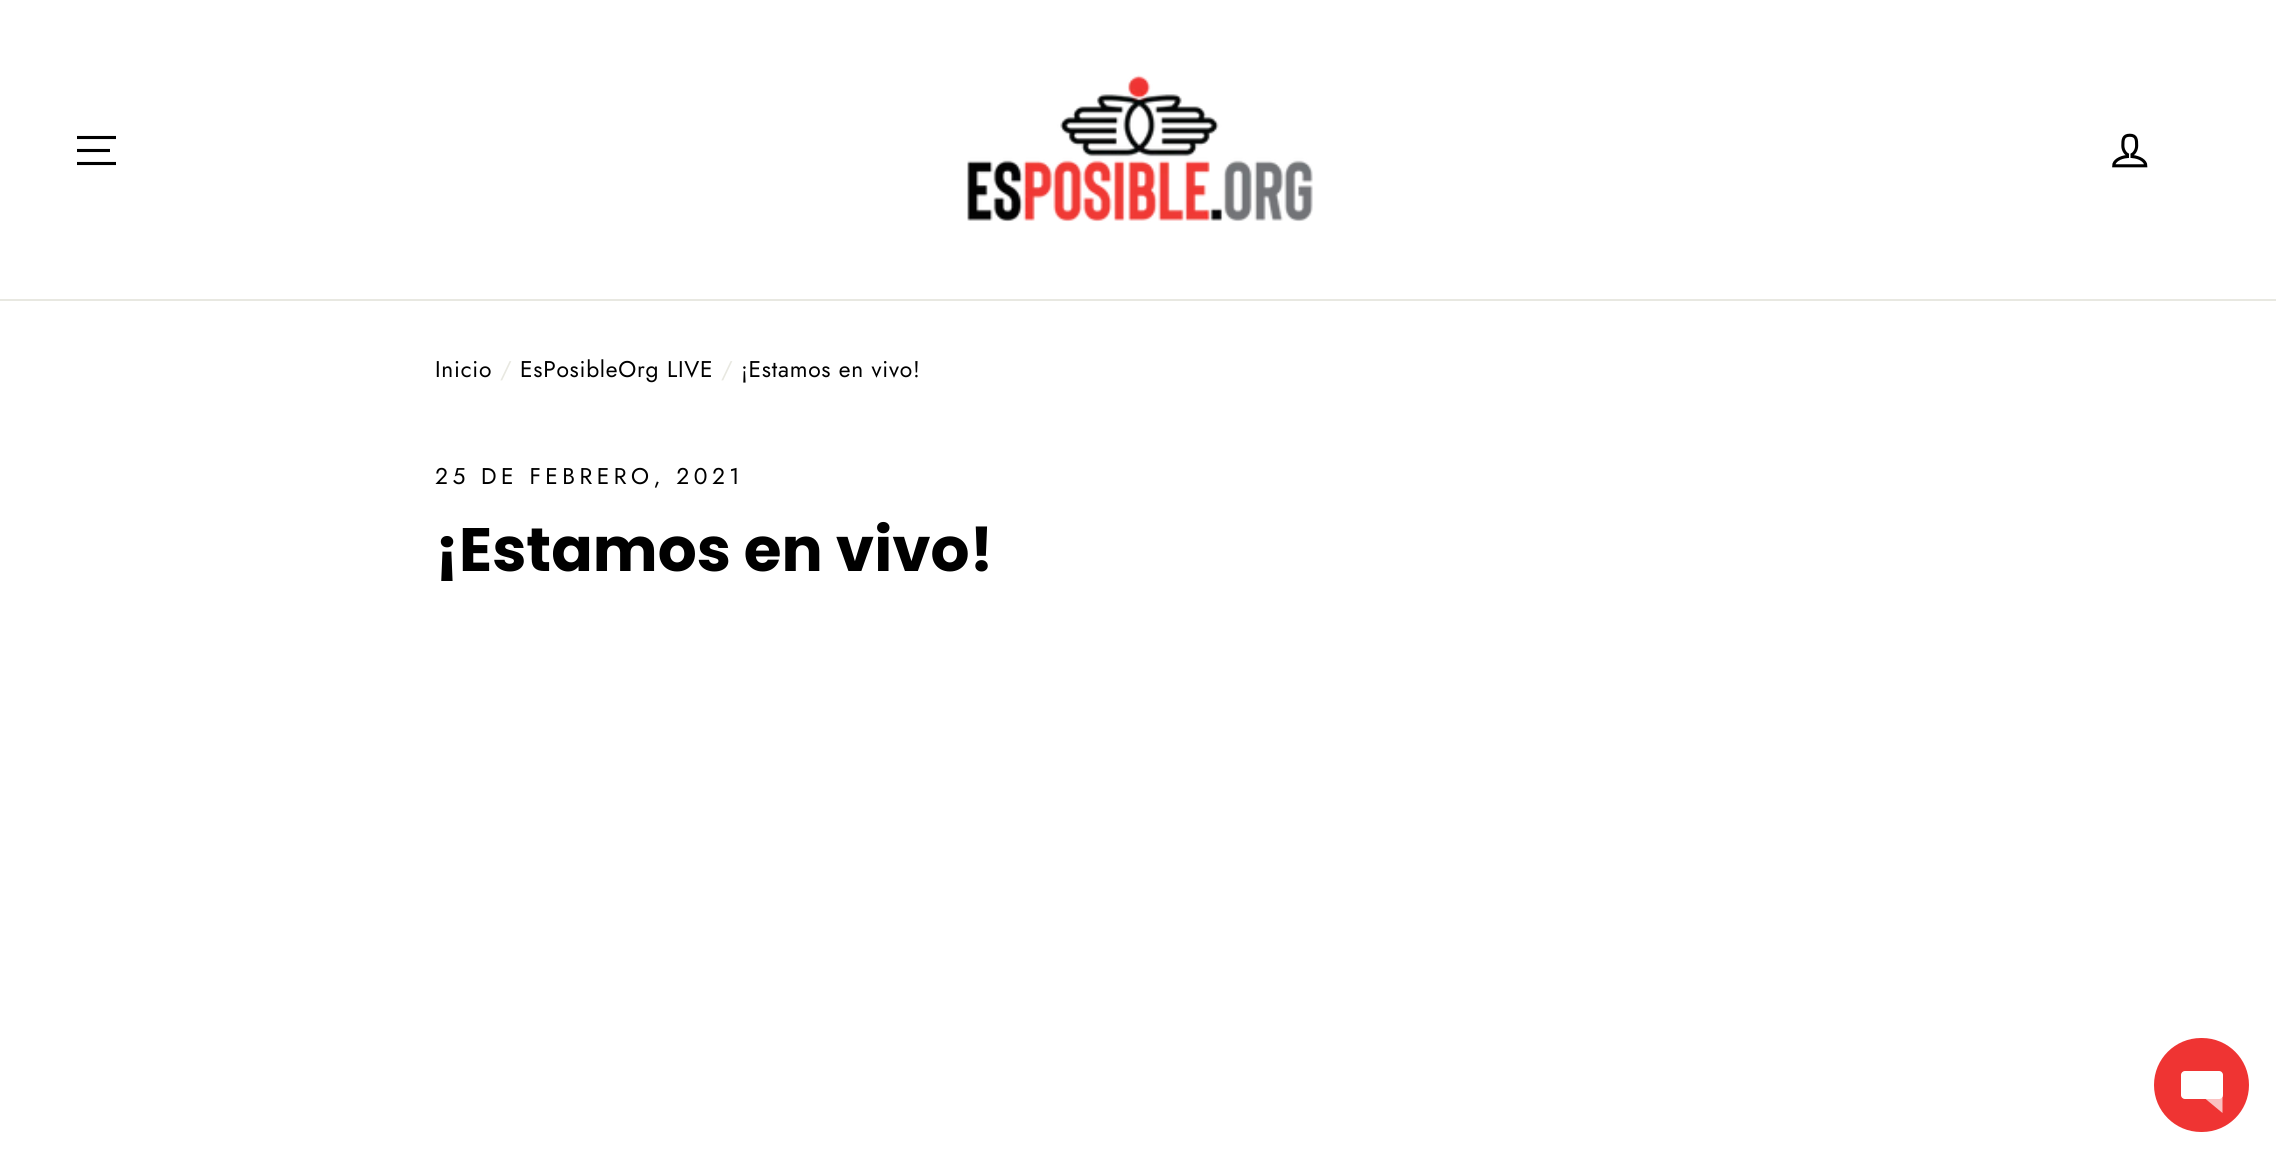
#include <cairo.h>
#include <math.h>
#include <stddef.h>


static void rgb(cairo_t *cr, int r, int g, int b)
{
	cairo_set_source_rgb(cr, r / 255.0, g / 255.0, b / 255.0);
}

static void face(cairo_t *cr, const char *family, double size, int italic, int bold)
{
	cairo_select_font_face(cr, family, italic ? CAIRO_FONT_SLANT_ITALIC : CAIRO_FONT_SLANT_NORMAL,
		bold ? CAIRO_FONT_WEIGHT_BOLD : CAIRO_FONT_WEIGHT_NORMAL);
	cairo_set_font_size(cr, size);
}

static void label(cairo_t *cr, double x, double y, const char *s)
{
	cairo_move_to(cr, x, y);
	cairo_show_text(cr, s);
}

static void tracked(cairo_t *cr, double x, double y, const char *s, double letter, double word)
{
	cairo_move_to(cr, x, y);
	while (*s) {
		char ch[5] = {0};
		int n = 0;
		do ch[n++] = *s++; while ((*s & 0xC0) == 0x80);
		cairo_show_text(cr, ch);
		cairo_rel_move_to(cr, letter + word * (*ch == ' '), 0);
	}
}

static void rect(cairo_t *cr, double x, double y, double w, double h)
{
	cairo_rectangle(cr, x, y, w, h);
	cairo_fill(cr);
}

static void rrect(cairo_t *cr, double x, double y, double w, double h, double r)
{
	cairo_new_sub_path(cr);
	cairo_arc(cr, x + w - r, y + h - r, r, 0, M_PI / 2);
	cairo_arc(cr, x + r, y + h - r, r, M_PI / 2, M_PI);
	cairo_arc(cr, x + r, y + r, r, M_PI, 1.5 * M_PI);
	cairo_arc(cr, x + w - r, y + r, r, 1.5 * M_PI, 2 * M_PI);
	cairo_close_path(cr);
}

static void image(cairo_t *cr, const char *path, double x, double y, double w, double h)
{
	cairo_surface_t *image = cairo_image_surface_create_from_png(path);
	cairo_save(cr);
	cairo_set_source_surface(cr, image, x, y);
	cairo_rectangle(cr, x, y, w, h);
	cairo_fill(cr);
	cairo_restore(cr);
	cairo_surface_destroy(image);
}

static void draw(cairo_t *cr) {
	rgb(cr, 255, 255, 255);
	cairo_paint(cr);
	rgb(cr, 232, 232, 225);
	rect(cr, 0, 299, 2276, 2);
	cairo_new_path(cr);
	cairo_move_to(cr, 77, 137.5);
	cairo_line_to(cr, 116, 137.5);
	cairo_move_to(cr, 77, 150.5);
	cairo_line_to(cr, 110, 150.5);
	cairo_move_to(cr, 77, 163.5);
	cairo_line_to(cr, 116, 163.5);
	rgb(cr, 0, 0, 0);
	cairo_set_line_width(cr, 3.1);
	cairo_stroke(cr);
	image(cr, "image0.png", 967, 75, 346, 147);
	image(cr, "image1.png", 2112, 133, 36, 35);
	face(cr, "Jost", 22.75, 0, 0);
	tracked(cr, 435, 377, "Inicio", 0.75, 0);
	rgb(cr, 232, 232, 225);
	tracked(cr, 500, 377, "/", 0.75, 0);
	rgb(cr, 0, 0, 0);
	tracked(cr, 520, 377, "EsPosibleOrg LIVE", 0.75, 0);
	rgb(cr, 232, 232, 225);
	tracked(cr, 721, 377, "/", 0.75, 0);
	rgb(cr, 0, 0, 0);
	tracked(cr, 741, 377, "¡Estamos en vivo!", 0.75, 0);
	tracked(cr, 435, 484, "25 DE FEBRERO, 2021", 4.5, 0);
	face(cr, "Poppins", 61.25, 0, 1);
	label(cr, 435, 571, "¡Estamos en vivo!");
	rgb(cr, 239, 52, 51);
	rrect(cr, 2154, 1038, 95, 94, 47);
	cairo_fill(cr);
	rgb(cr, 255, 255, 255);
	rrect(cr, 2181, 1071, 42, 28, 4);
	cairo_fill(cr);
	cairo_set_source_rgba(cr, 1, 1, 1, 0.7);
	cairo_new_path(cr);
	cairo_move_to(cr, 2202, 1096);
	cairo_line_to(cr, 2222.5, 1096);
	cairo_line_to(cr, 2222.5, 1113);
	cairo_close_path(cr);
	cairo_fill(cr);
}

int main(void) {
	cairo_surface_t *surface = cairo_image_surface_create(CAIRO_FORMAT_RGB24, 2276, 1160);
	cairo_t *cr = cairo_create(surface);
	cairo_font_options_t *options = cairo_font_options_create();
	cairo_font_options_set_hint_metrics(options, CAIRO_HINT_METRICS_OFF);
	cairo_font_options_set_hint_style(options, CAIRO_HINT_STYLE_NONE);
	cairo_set_font_options(cr, options);
	cairo_set_miter_limit(cr, 4);
	draw(cr);
	cairo_surface_write_to_png(surface, "render.png");
	cairo_font_options_destroy(options);
	cairo_destroy(cr);
	cairo_surface_destroy(surface);
	return 0;
}
